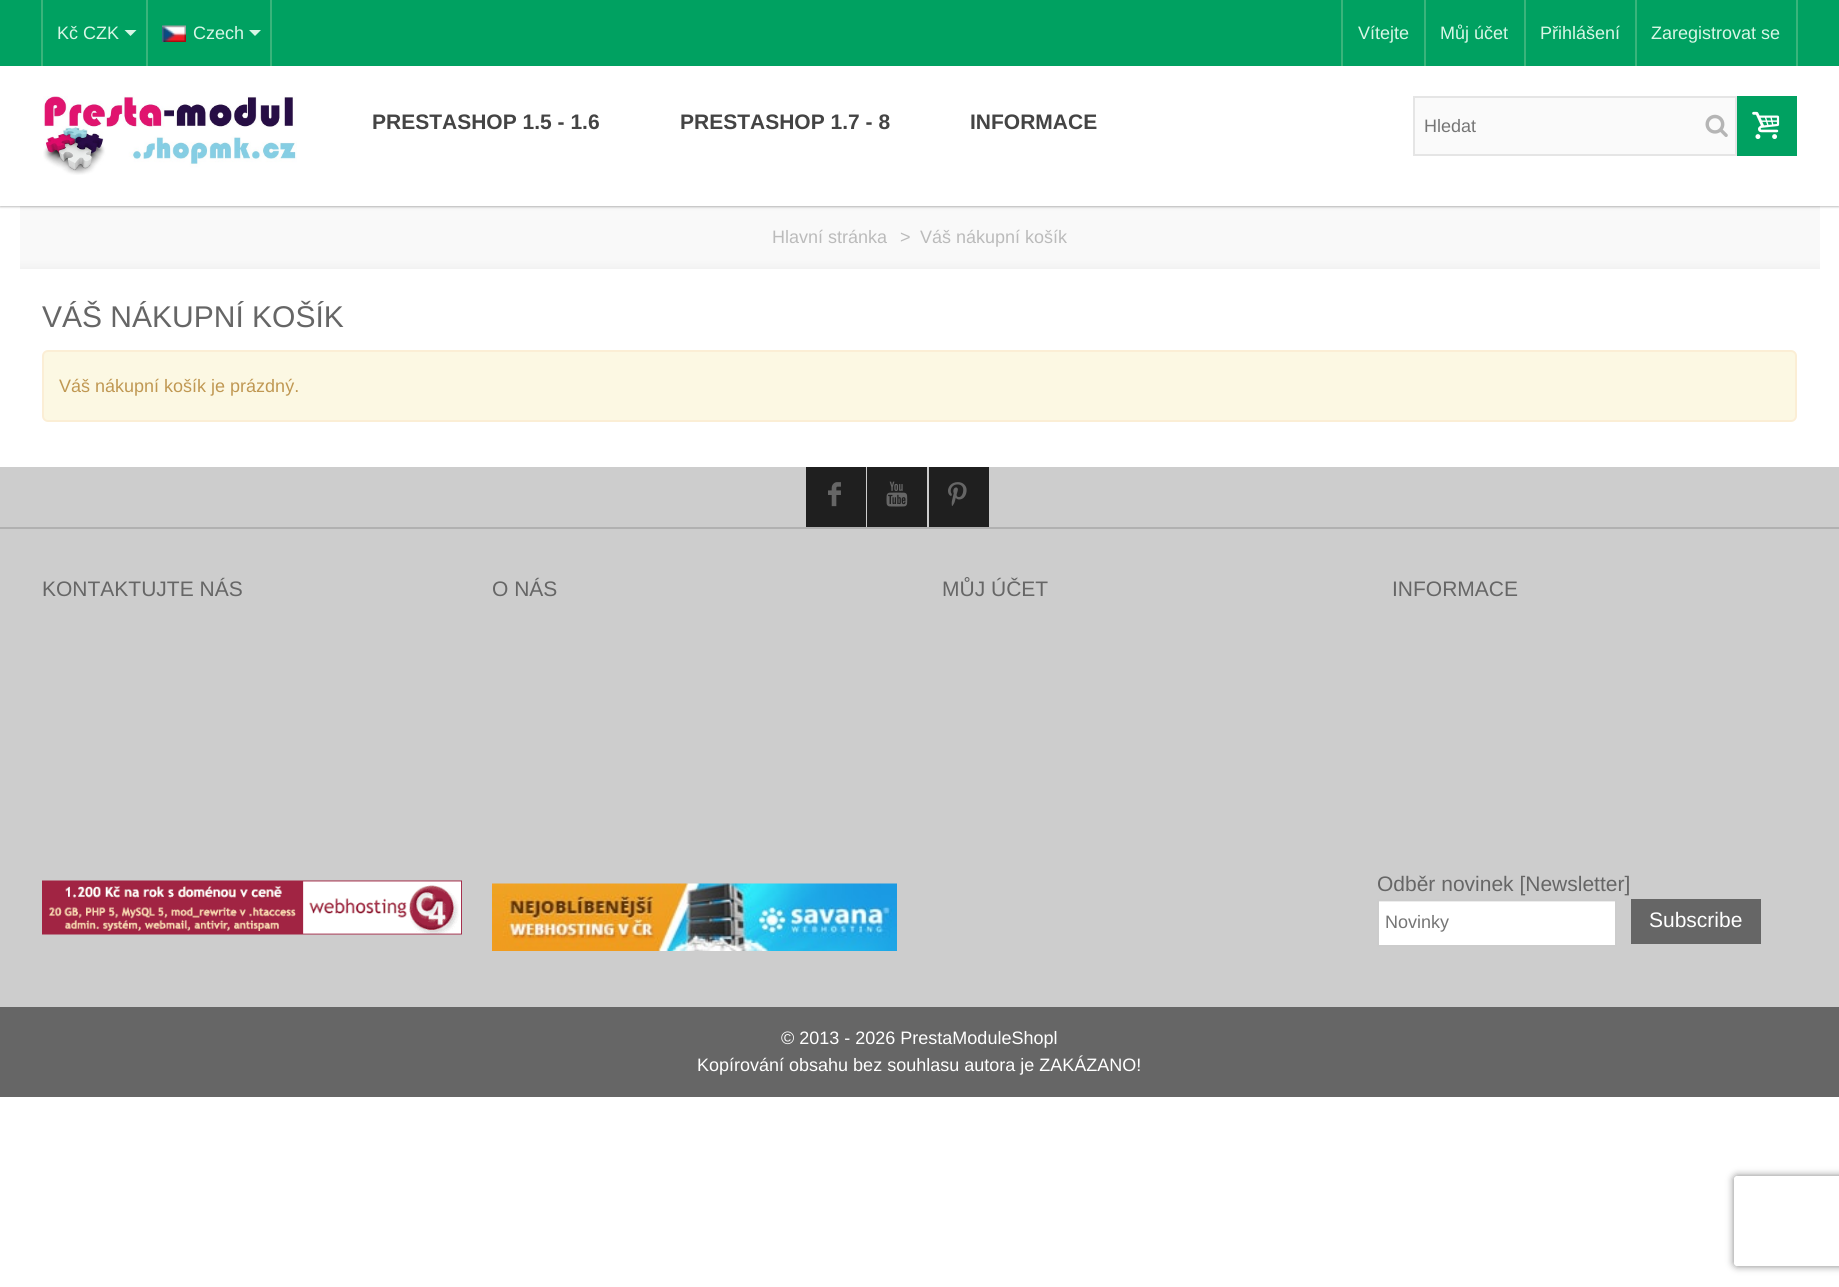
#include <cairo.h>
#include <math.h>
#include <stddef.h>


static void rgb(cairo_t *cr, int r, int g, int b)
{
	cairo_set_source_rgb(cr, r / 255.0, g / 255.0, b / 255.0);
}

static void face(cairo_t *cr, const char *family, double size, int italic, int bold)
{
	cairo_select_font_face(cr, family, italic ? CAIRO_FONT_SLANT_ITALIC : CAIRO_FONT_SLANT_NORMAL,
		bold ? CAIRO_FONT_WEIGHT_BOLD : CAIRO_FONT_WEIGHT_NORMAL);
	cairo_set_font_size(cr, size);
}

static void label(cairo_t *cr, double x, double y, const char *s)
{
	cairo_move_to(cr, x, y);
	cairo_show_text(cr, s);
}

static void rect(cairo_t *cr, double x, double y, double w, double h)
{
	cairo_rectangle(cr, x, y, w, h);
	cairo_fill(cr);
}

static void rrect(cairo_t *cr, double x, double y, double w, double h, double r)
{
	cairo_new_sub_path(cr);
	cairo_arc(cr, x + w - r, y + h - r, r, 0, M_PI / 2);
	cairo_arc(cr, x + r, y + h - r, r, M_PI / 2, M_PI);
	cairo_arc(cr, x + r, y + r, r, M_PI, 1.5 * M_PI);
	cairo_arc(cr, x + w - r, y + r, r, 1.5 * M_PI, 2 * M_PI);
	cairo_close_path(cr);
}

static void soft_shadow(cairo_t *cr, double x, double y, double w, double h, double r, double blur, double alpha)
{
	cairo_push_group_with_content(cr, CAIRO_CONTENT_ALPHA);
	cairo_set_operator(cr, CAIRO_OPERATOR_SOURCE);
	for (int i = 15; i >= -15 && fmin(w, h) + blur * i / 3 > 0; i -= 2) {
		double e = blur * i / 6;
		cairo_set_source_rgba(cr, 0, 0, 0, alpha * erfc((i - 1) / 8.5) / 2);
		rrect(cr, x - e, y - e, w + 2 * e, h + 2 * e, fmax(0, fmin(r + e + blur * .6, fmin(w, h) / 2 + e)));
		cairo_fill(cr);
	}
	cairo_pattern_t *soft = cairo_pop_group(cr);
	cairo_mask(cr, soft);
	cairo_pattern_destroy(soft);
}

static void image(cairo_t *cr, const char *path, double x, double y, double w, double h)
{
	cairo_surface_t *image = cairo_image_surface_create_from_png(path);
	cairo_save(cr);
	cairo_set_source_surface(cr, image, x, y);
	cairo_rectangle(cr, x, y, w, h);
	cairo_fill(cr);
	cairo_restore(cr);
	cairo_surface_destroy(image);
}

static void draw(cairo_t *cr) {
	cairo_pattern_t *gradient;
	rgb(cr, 255, 255, 255);
	cairo_paint(cr);
	rgb(cr, 0, 161, 97);
	rect(cr, 0, 0, 1839, 66);
	rgb(cr, 58, 180, 123);
	rect(cr, 1424, 0, 2, 66);
	rect(cr, 1341, 0, 2, 66);
	rect(cr, 1524, 0, 2, 66);
	rect(cr, 1635, 0, 2, 66);
	rect(cr, 1796, 0, 2, 66);
	gradient = cairo_pattern_create_linear(920, 205, 920, 269);
	cairo_pattern_add_color_stop_rgba(gradient, 0, 0.949, 0.949, 0.949, 1);
	cairo_pattern_add_color_stop_rgba(gradient, 0.1, 0.976, 0.976, 0.976, 1);
	cairo_pattern_add_color_stop_rgba(gradient, 0.85, 0.976, 0.976, 0.976, 1);
	cairo_pattern_add_color_stop_rgba(gradient, 1, 0.949, 0.949, 0.949, 1);
	cairo_set_source(cr, gradient);
	cairo_pattern_destroy(gradient);
	rect(cr, 20, 206, 1800, 63);
	rgb(cr, 0, 0, 0);
	soft_shadow(cr, 0, 68, 1839, 139, 0, 1, 0.25);
	rgb(cr, 58, 180, 123);
	rect(cr, 146, 0, 2, 66);
	rect(cr, 41, 0, 2, 66);
	face(cr, "Liberation Sans", 18, 0, 0);
	rgb(cr, 216, 246, 230);
	label(cr, 57, 39, "Kč CZK");
	cairo_new_path(cr);
	cairo_move_to(cr, 124.5, 30);
	cairo_line_to(cr, 136.5, 30);
	cairo_line_to(cr, 130.5, 36);
	cairo_close_path(cr);
	cairo_fill(cr);
	rgb(cr, 58, 180, 123);
	rect(cr, 270, 0, 2, 66);
	image(cr, "image0.png", 162, 25, 24, 17);
	rgb(cr, 216, 246, 230);
	label(cr, 193, 39, "Czech");
	cairo_new_path(cr);
	cairo_move_to(cr, 249, 30);
	cairo_line_to(cr, 261, 30);
	cairo_line_to(cr, 255, 36);
	cairo_close_path(cr);
	cairo_fill(cr);
	label(cr, 1358, 39, "Vítejte");
	label(cr, 1440, 39, "Můj účet");
	label(cr, 1540, 39, "Přihlášení");
	label(cr, 1651, 39, "Zaregistrovat se");
	rgb(cr, 255, 255, 255);
	rect(cr, 0, 66, 1839, 140);
	image(cr, "image1.png", 43, 96, 254, 79);
	face(cr, "Liberation Sans", 21, 0, 1);
	rgb(cr, 68, 68, 68);
	label(cr, 372, 129, "PRESTASHOP 1.5 - 1.6");
	label(cr, 680, 129, "PRESTASHOP 1.7 - 8");
	label(cr, 970, 129, "INFORMACE");
	rgb(cr, 250, 250, 250);
	cairo_rectangle(cr, 1414, 97, 322, 58);
	cairo_fill_preserve(cr);
	rgb(cr, 229, 229, 229);
	cairo_stroke(cr);
	face(cr, "Liberation Sans", 18, 0, 0);
	rgb(cr, 117, 117, 117);
	label(cr, 1424, 132, "Hledat");
	image(cr, "image2.png", 1705, 114, 23, 23);
	rgb(cr, 0, 161, 97);
	rect(cr, 1737, 96, 60, 60);
	image(cr, "image3.png", 1752, 111, 28, 28);
	rgb(cr, 187, 187, 187);
	label(cr, 772, 243, "Hlavní stránka");
	label(cr, 900, 243, ">");
	label(cr, 920, 243, "Váš nákupní košík");
	face(cr, "Liberation Sans", 30, 0, 0);
	rgb(cr, 102, 102, 102);
	label(cr, 42, 327, "VÁŠ NÁKUPNÍ KOŠÍK");
	rgb(cr, 252, 248, 227);
	rrect(cr, 43, 351, 1753, 70, 5);
	cairo_fill_preserve(cr);
	rgb(cr, 251, 238, 213);
	cairo_stroke(cr);
	face(cr, "Liberation Sans", 18, 0, 0);
	rgb(cr, 192, 152, 83);
	label(cr, 59, 392, "Váš nákupní košík je prázdný.");
	rgb(cr, 205, 205, 205);
	rect(cr, 0, 467, 1839, 60);
	rgb(cr, 31, 31, 31);
	rect(cr, 806, 467, 60, 60);
	image(cr, "image4.png", 828, 482, 13, 25);
	rect(cr, 867, 467, 60, 60);
	image(cr, "image5.png", 886, 481, 22, 26);
	rect(cr, 929, 467, 60, 60);
	image(cr, "image6.png", 948, 482, 19, 24);
	rgb(cr, 205, 205, 205);
	rect(cr, 0, 529, 1839, 478);
	rgb(cr, 177, 177, 177);
	rect(cr, 0, 527, 1839, 2);
	face(cr, "Liberation Sans", 21, 0, 0);
	rgb(cr, 102, 102, 102);
	label(cr, 42, 596, "KONTAKTUJTE NÁS");
	image(cr, "image7.png", 42, 880, 420, 55);
	label(cr, 492, 596, "O NÁS");
	image(cr, "image8.png", 492, 883, 405, 68);
	label(cr, 942, 596, "MŮJ ÚČET");
	label(cr, 1392, 596, "INFORMACE");
	label(cr, 1377, 891, "Odběr novinek [Newsletter]");
	rgb(cr, 255, 255, 255);
	rect(cr, 1379, 902, 236, 43);
	rgb(cr, 236, 236, 236);
	rect(cr, 1379, 901, 237, 1);
	cairo_rectangle(cr, 1378, 900, 238, 46);
	rgb(cr, 204, 204, 204);
	cairo_stroke(cr);
	face(cr, "Liberation Sans", 18, 0, 0);
	rgb(cr, 117, 117, 117);
	label(cr, 1385, 928, "Novinky");
	rgb(cr, 102, 102, 102);
	rect(cr, 1631, 899, 130, 45);
	face(cr, "Liberation Sans", 21, 0, 0);
	rgb(cr, 255, 255, 255);
	label(cr, 1649, 927, "Subscribe");
	cairo_save(cr);
	cairo_set_fill_rule(cr, CAIRO_FILL_RULE_EVEN_ODD);
	cairo_new_path(cr);
	cairo_move_to(cr, 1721, 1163);
	cairo_line_to(cr, 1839, 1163);
	cairo_line_to(cr, 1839, 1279);
	cairo_line_to(cr, 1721, 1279);
	cairo_close_path(cr);
	cairo_move_to(cr, 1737, 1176);
	cairo_line_to(cr, 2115, 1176);
	cairo_curve_to(cr, 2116.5, 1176, 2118, 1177.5, 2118, 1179);
	cairo_line_to(cr, 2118, 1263);
	cairo_curve_to(cr, 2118, 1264.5, 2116.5, 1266, 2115, 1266);
	cairo_line_to(cr, 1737, 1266);
	cairo_curve_to(cr, 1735.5, 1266, 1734, 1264.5, 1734, 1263);
	cairo_line_to(cr, 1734, 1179);
	cairo_curve_to(cr, 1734, 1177.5, 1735.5, 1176, 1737, 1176);
	cairo_close_path(cr);
	cairo_clip(cr);
	rgb(cr, 128, 128, 128);
	soft_shadow(cr, 1734, 1176, 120, 90, 3, 4, 1);
	cairo_restore(cr);
	rgb(cr, 102, 102, 102);
	rect(cr, 0, 1007, 1839, 90);
	face(cr, "Liberation Sans", 18, 0, 0);
	rgb(cr, 255, 255, 255);
	label(cr, 781, 1044, "© 2013 - 2026 PrestaModuleShopl");
	label(cr, 697, 1071, "Kopírování obsahu bez souhlasu autora je ZAKÁZANO!");
}

int main(void) {
	cairo_surface_t *surface = cairo_image_surface_create(CAIRO_FORMAT_RGB24, 1839, 1287);
	cairo_t *cr = cairo_create(surface);
	cairo_font_options_t *options = cairo_font_options_create();
	cairo_font_options_set_hint_metrics(options, CAIRO_HINT_METRICS_OFF);
	cairo_font_options_set_hint_style(options, CAIRO_HINT_STYLE_NONE);
	cairo_set_font_options(cr, options);
	cairo_set_miter_limit(cr, 4);
	draw(cr);
	cairo_surface_write_to_png(surface, "render.png");
	cairo_font_options_destroy(options);
	cairo_destroy(cr);
	cairo_surface_destroy(surface);
	return 0;
}
